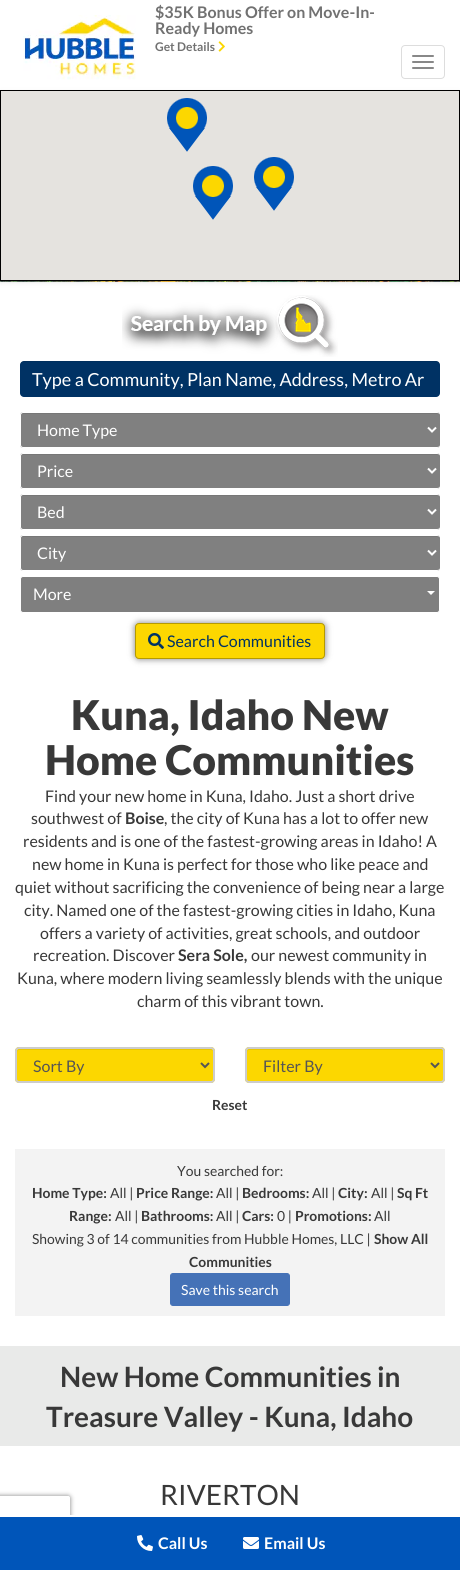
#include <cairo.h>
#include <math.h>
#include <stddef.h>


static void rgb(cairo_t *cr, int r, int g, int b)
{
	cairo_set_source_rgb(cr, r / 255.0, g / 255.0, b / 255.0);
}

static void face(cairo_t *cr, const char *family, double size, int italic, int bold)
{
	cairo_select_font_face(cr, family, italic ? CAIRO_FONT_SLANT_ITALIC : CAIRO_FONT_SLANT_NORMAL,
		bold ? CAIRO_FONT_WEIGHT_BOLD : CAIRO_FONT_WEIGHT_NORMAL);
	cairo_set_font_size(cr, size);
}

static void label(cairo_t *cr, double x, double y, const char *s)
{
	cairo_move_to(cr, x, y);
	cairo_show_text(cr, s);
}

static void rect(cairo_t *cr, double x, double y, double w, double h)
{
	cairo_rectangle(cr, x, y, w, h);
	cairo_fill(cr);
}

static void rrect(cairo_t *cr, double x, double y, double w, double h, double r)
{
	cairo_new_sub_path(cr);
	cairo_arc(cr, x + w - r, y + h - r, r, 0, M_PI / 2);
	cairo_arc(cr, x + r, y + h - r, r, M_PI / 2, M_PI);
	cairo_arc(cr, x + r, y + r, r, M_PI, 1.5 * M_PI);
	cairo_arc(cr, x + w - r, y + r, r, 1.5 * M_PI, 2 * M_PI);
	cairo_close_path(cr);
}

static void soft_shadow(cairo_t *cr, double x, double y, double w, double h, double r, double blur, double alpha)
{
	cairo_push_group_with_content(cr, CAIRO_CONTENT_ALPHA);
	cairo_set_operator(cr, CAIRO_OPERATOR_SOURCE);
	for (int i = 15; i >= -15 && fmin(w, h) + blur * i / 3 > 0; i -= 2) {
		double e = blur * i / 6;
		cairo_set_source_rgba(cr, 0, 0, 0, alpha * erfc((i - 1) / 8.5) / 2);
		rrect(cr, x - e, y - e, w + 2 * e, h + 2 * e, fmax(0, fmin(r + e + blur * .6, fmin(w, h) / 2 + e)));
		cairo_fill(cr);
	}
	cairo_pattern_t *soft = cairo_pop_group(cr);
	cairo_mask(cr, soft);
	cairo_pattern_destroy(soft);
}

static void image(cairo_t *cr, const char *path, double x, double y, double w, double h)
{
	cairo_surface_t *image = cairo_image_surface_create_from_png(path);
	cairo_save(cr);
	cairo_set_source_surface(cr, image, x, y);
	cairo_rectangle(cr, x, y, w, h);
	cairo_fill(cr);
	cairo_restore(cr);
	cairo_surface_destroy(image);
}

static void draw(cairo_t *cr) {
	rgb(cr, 255, 255, 255);
	cairo_paint(cr);
	face(cr, "Lato", 16, 0, 1);
	rgb(cr, 113, 113, 113);
	label(cr, 155, 18, "$35K Bonus Offer on Move-In-");
	label(cr, 155, 34, "Ready Homes");
	face(cr, "Lato", 12, 0, 1);
	label(cr, 155, 51, "Get Details");
	image(cr, "image0.png", 218, 41, 7, 11);
	image(cr, "image1.png", 23, 15, 113, 65);
	rrect(cr, 401.5, 45.5, 43, 33, 3.5);
	rgb(cr, 221, 221, 221);
	cairo_set_line_width(cr, 1);
	cairo_stroke(cr);
	rgb(cr, 136, 136, 136);
	rrect(cr, 412, 55, 22, 2, 1);
	cairo_fill(cr);
	rrect(cr, 412, 61, 22, 2, 1);
	cairo_fill(cr);
	rrect(cr, 412, 67, 22, 2, 1);
	cairo_fill(cr);
	image(cr, "image3.png", 0, 281, 460, 1);
	rgb(cr, 64, 64, 64);
	soft_shadow(cr, 0, 92, 460, 191, 0, 2.5, 0.1);
	cairo_rectangle(cr, 0.5, 90.5, 459, 190);
	rgb(cr, 0, 0, 0);
	cairo_stroke(cr);
	rgb(cr, 229, 227, 223);
	rect(cr, 1, 91, 458, 189);
	image(cr, "image2.png", 167, 98, 40, 54);
	image(cr, "image2.png", 193, 166, 40, 54);
	image(cr, "image2.png", 254, 157, 40, 54);
	image(cr, "image4.png", 122, 295, 216, 62);
	rgb(cr, 0, 50, 100);
	rrect(cr, 20, 361, 420, 36, 4);
	cairo_fill(cr);
	cairo_set_source_rgba(cr, 0, 0, 0, 0.07);
	cairo_new_path(cr);
	cairo_move_to(cr, 24, 362);
	cairo_line_to(cr, 436, 362);
	cairo_curve_to(cr, 438, 362, 440, 364, 440, 366);
	cairo_line_to(cr, 440, 365);
	cairo_curve_to(cr, 440, 363, 438, 361, 436, 361);
	cairo_line_to(cr, 24, 361);
	cairo_curve_to(cr, 22, 361, 20, 363, 20, 365);
	cairo_line_to(cr, 20, 366);
	cairo_curve_to(cr, 20, 364, 22, 362, 24, 362);
	cairo_close_path(cr);
	cairo_fill(cr);
	face(cr, "Lato", 18, 0, 0);
	rgb(cr, 255, 255, 255);
	label(cr, 32, 386, "Type a Community, Plan Name, Address, Metro Ar");
	rgb(cr, 128, 128, 128);
	rrect(cr, 20, 412, 420, 36, 3);
	cairo_fill(cr);
	cairo_set_source_rgba(cr, 0, 0, 0, 0.07);
	cairo_new_path(cr);
	cairo_move_to(cr, 23, 414);
	cairo_line_to(cr, 437, 414);
	cairo_curve_to(cr, 439, 414, 440, 415, 440, 416);
	cairo_curve_to(cr, 440, 414, 439, 413, 437, 413);
	cairo_line_to(cr, 23, 413);
	cairo_line_to(cr, 21, 414);
	cairo_line_to(cr, 21, 416);
	cairo_curve_to(cr, 21, 415, 22, 414, 23, 414);
	cairo_close_path(cr);
	cairo_fill(cr);
	rgb(cr, 255, 255, 255);
	cairo_set_fill_rule(cr, CAIRO_FILL_RULE_EVEN_ODD);
	cairo_new_path(cr);
	cairo_move_to(cr, 23, 412);
	cairo_line_to(cr, 437, 412);
	cairo_curve_to(cr, 439, 412, 440, 413, 440, 415);
	cairo_line_to(cr, 440, 445);
	cairo_curve_to(cr, 440, 447, 439, 448, 437, 448);
	cairo_line_to(cr, 23, 448);
	cairo_curve_to(cr, 21, 448, 20, 447, 20, 445);
	cairo_line_to(cr, 20, 415);
	cairo_curve_to(cr, 20, 413, 21, 412, 23, 412);
	cairo_close_path(cr);
	cairo_move_to(cr, 23, 413);
	cairo_line_to(cr, 437, 413);
	cairo_curve_to(cr, 439, 413, 440, 414, 440, 415);
	cairo_line_to(cr, 440, 445);
	cairo_curve_to(cr, 440, 446, 439, 447, 437, 447);
	cairo_line_to(cr, 23, 447);
	cairo_curve_to(cr, 22, 447, 21, 446, 21, 445);
	cairo_line_to(cr, 21, 415);
	cairo_curve_to(cr, 21, 414, 22, 413, 23, 413);
	cairo_close_path(cr);
	cairo_fill(cr);
	cairo_new_path(cr);
	cairo_move_to(cr, 428, 427.5);
	cairo_line_to(cr, 432, 431.5);
	cairo_line_to(cr, 436, 427.5);
	cairo_set_line_width(cr, 2);
	cairo_stroke(cr);
	face(cr, "Lato", 16, 0, 0);
	label(cr, 37, 436, "Home Type");
	rgb(cr, 128, 128, 128);
	rrect(cr, 20, 453, 420, 36, 3);
	cairo_fill(cr);
	cairo_set_source_rgba(cr, 0, 0, 0, 0.07);
	cairo_set_fill_rule(cr, CAIRO_FILL_RULE_WINDING);
	cairo_new_path(cr);
	cairo_move_to(cr, 23, 455);
	cairo_line_to(cr, 437, 455);
	cairo_curve_to(cr, 439, 455, 440, 456, 440, 457);
	cairo_curve_to(cr, 440, 455, 439, 454, 437, 454);
	cairo_line_to(cr, 23, 454);
	cairo_line_to(cr, 21, 455);
	cairo_line_to(cr, 21, 457);
	cairo_curve_to(cr, 21, 456, 22, 455, 23, 455);
	cairo_close_path(cr);
	cairo_fill(cr);
	rgb(cr, 255, 255, 255);
	cairo_set_fill_rule(cr, CAIRO_FILL_RULE_EVEN_ODD);
	cairo_new_path(cr);
	cairo_move_to(cr, 23, 453);
	cairo_line_to(cr, 437, 453);
	cairo_curve_to(cr, 439, 453, 440, 454, 440, 456);
	cairo_line_to(cr, 440, 486);
	cairo_curve_to(cr, 440, 488, 439, 489, 437, 489);
	cairo_line_to(cr, 23, 489);
	cairo_curve_to(cr, 21, 489, 20, 488, 20, 486);
	cairo_line_to(cr, 20, 456);
	cairo_curve_to(cr, 20, 454, 21, 453, 23, 453);
	cairo_close_path(cr);
	cairo_move_to(cr, 23, 454);
	cairo_line_to(cr, 437, 454);
	cairo_curve_to(cr, 439, 454, 440, 455, 440, 456);
	cairo_line_to(cr, 440, 486);
	cairo_curve_to(cr, 440, 487, 439, 488, 437, 488);
	cairo_line_to(cr, 23, 488);
	cairo_curve_to(cr, 22, 488, 21, 487, 21, 486);
	cairo_line_to(cr, 21, 456);
	cairo_curve_to(cr, 21, 455, 22, 454, 23, 454);
	cairo_close_path(cr);
	cairo_fill(cr);
	cairo_new_path(cr);
	cairo_move_to(cr, 428, 468.5);
	cairo_line_to(cr, 432, 472.5);
	cairo_line_to(cr, 436, 468.5);
	cairo_stroke(cr);
	label(cr, 37, 477, "Price");
	rgb(cr, 128, 128, 128);
	rrect(cr, 20, 494, 420, 36, 3);
	cairo_fill(cr);
	cairo_set_source_rgba(cr, 0, 0, 0, 0.07);
	cairo_set_fill_rule(cr, CAIRO_FILL_RULE_WINDING);
	cairo_new_path(cr);
	cairo_move_to(cr, 23, 496);
	cairo_line_to(cr, 437, 496);
	cairo_curve_to(cr, 439, 496, 440, 497, 440, 498);
	cairo_curve_to(cr, 440, 496, 439, 495, 437, 495);
	cairo_line_to(cr, 23, 495);
	cairo_line_to(cr, 21, 496);
	cairo_line_to(cr, 21, 498);
	cairo_curve_to(cr, 21, 497, 22, 496, 23, 496);
	cairo_close_path(cr);
	cairo_fill(cr);
	rgb(cr, 255, 255, 255);
	cairo_set_fill_rule(cr, CAIRO_FILL_RULE_EVEN_ODD);
	cairo_new_path(cr);
	cairo_move_to(cr, 23, 494);
	cairo_line_to(cr, 437, 494);
	cairo_curve_to(cr, 439, 494, 440, 495, 440, 497);
	cairo_line_to(cr, 440, 527);
	cairo_curve_to(cr, 440, 529, 439, 530, 437, 530);
	cairo_line_to(cr, 23, 530);
	cairo_curve_to(cr, 21, 530, 20, 529, 20, 527);
	cairo_line_to(cr, 20, 497);
	cairo_curve_to(cr, 20, 495, 21, 494, 23, 494);
	cairo_close_path(cr);
	cairo_move_to(cr, 23, 495);
	cairo_line_to(cr, 437, 495);
	cairo_curve_to(cr, 439, 495, 440, 496, 440, 497);
	cairo_line_to(cr, 440, 527);
	cairo_curve_to(cr, 440, 528, 439, 529, 437, 529);
	cairo_line_to(cr, 23, 529);
	cairo_curve_to(cr, 22, 529, 21, 528, 21, 527);
	cairo_line_to(cr, 21, 497);
	cairo_curve_to(cr, 21, 496, 22, 495, 23, 495);
	cairo_close_path(cr);
	cairo_fill(cr);
	cairo_new_path(cr);
	cairo_move_to(cr, 428, 509.5);
	cairo_line_to(cr, 432, 513.5);
	cairo_line_to(cr, 436, 509.5);
	cairo_stroke(cr);
	label(cr, 37, 518, "Bed");
	rgb(cr, 128, 128, 128);
	rrect(cr, 20, 535, 420, 36, 3);
	cairo_fill(cr);
	cairo_set_source_rgba(cr, 0, 0, 0, 0.07);
	cairo_set_fill_rule(cr, CAIRO_FILL_RULE_WINDING);
	cairo_new_path(cr);
	cairo_move_to(cr, 23, 537);
	cairo_line_to(cr, 437, 537);
	cairo_curve_to(cr, 439, 537, 440, 538, 440, 539);
	cairo_curve_to(cr, 440, 537, 439, 536, 437, 536);
	cairo_line_to(cr, 23, 536);
	cairo_line_to(cr, 21, 537);
	cairo_line_to(cr, 21, 539);
	cairo_curve_to(cr, 21, 538, 22, 537, 23, 537);
	cairo_close_path(cr);
	cairo_fill(cr);
	rgb(cr, 255, 255, 255);
	cairo_set_fill_rule(cr, CAIRO_FILL_RULE_EVEN_ODD);
	cairo_new_path(cr);
	cairo_move_to(cr, 23, 535);
	cairo_line_to(cr, 437, 535);
	cairo_curve_to(cr, 439, 535, 440, 536, 440, 538);
	cairo_line_to(cr, 440, 568);
	cairo_curve_to(cr, 440, 570, 439, 571, 437, 571);
	cairo_line_to(cr, 23, 571);
	cairo_curve_to(cr, 21, 571, 20, 570, 20, 568);
	cairo_line_to(cr, 20, 538);
	cairo_curve_to(cr, 20, 536, 21, 535, 23, 535);
	cairo_close_path(cr);
	cairo_move_to(cr, 23, 536);
	cairo_line_to(cr, 437, 536);
	cairo_curve_to(cr, 439, 536, 440, 537, 440, 538);
	cairo_line_to(cr, 440, 568);
	cairo_curve_to(cr, 440, 569, 439, 570, 437, 570);
	cairo_line_to(cr, 23, 570);
	cairo_curve_to(cr, 22, 570, 21, 569, 21, 568);
	cairo_line_to(cr, 21, 538);
	cairo_curve_to(cr, 21, 537, 22, 536, 23, 536);
	cairo_close_path(cr);
	cairo_fill(cr);
	cairo_new_path(cr);
	cairo_move_to(cr, 428, 550.5);
	cairo_line_to(cr, 432, 554.5);
	cairo_line_to(cr, 436, 550.5);
	cairo_stroke(cr);
	label(cr, 37, 559, "City");
	rgb(cr, 0, 0, 0);
	soft_shadow(cr, 135, 623, 190, 36, 4, 3.5, 0.5);
	rgb(cr, 127, 127, 127);
	rrect(cr, 20.5, 576.5, 419, 36, 2.5);
	cairo_fill_preserve(cr);
	rgb(cr, 255, 255, 255);
	cairo_set_line_width(cr, 1);
	cairo_stroke(cr);
	label(cr, 33, 600, "More");
	cairo_set_fill_rule(cr, CAIRO_FILL_RULE_WINDING);
	cairo_new_path(cr);
	cairo_move_to(cr, 427, 591);
	cairo_line_to(cr, 435, 591);
	cairo_line_to(cr, 431, 595);
	cairo_close_path(cr);
	cairo_fill(cr);
	rgb(cr, 252, 215, 0);
	rrect(cr, 135.5, 623.5, 189, 35, 3.5);
	cairo_fill_preserve(cr);
	rgb(cr, 181, 154, 0);
	cairo_stroke(cr);
	image(cr, "image5.png", 148, 633, 16, 16);
	rgb(cr, 0, 50, 100);
	label(cr, 167, 647, "Search Communities");
	face(cr, "Lato Black", 41, 0, 0);
	rgb(cr, 56, 56, 56);
	label(cr, 71, 730, "Kuna, Idaho New");
	label(cr, 45, 775, "Home Communities");
	face(cr, "Lato", 16, 0, 0);
	label(cr, 45, 802, "Find your new home in Kuna, Idaho. Just a short drive");
	label(cr, 31, 824, "southwest of");
	face(cr, "Lato", 16, 0, 1);
	label(cr, 125, 824, "Boise");
	face(cr, "Lato", 16, 0, 0);
	label(cr, 164, 824, ", the city of Kuna has a lot to offer new");
	label(cr, 23, 847, "residents and is one of the fastest-growing areas in Idaho! A");
	label(cr, 32, 870, "new home in Kuna is perfect for those who like peace and");
	label(cr, 15, 893, "quiet without sacrificing the convenience of being near a large");
	label(cr, 24, 916, "city. Named one of the fastest-growing cities in Idaho, Kuna");
	label(cr, 40, 939, "offers a variety of activities, great schools, and outdoor");
	label(cr, 33, 961, "recreation. Discover");
	face(cr, "Lato", 16, 0, 1);
	label(cr, 178, 961, "Sera Sole,");
	face(cr, "Lato", 16, 0, 0);
	label(cr, 251, 961, "our newest community in");
	label(cr, 17, 984, "Kuna, where modern living seamlessly blends with the unique");
	label(cr, 137, 1007, "charm of this vibrant town.");
	rgb(cr, 252, 215, 0);
	rrect(cr, 15, 1047, 200, 36, 4);
	cairo_fill(cr);
	rgb(cr, 233, 199, 0);
	cairo_new_path(cr);
	cairo_move_to(cr, 19, 1050);
	cairo_line_to(cr, 211, 1050);
	cairo_line_to(cr, 213, 1051);
	cairo_line_to(cr, 213, 1052);
	cairo_line_to(cr, 213, 1051);
	cairo_curve_to(cr, 213, 1050, 212, 1049, 211, 1049);
	cairo_line_to(cr, 19, 1049);
	cairo_curve_to(cr, 18, 1049, 17, 1050, 17, 1051);
	cairo_line_to(cr, 17, 1052);
	cairo_curve_to(cr, 17, 1051, 18, 1050, 19, 1050);
	cairo_close_path(cr);
	cairo_fill(cr);
	rrect(cr, 16, 1048, 198, 34, 3);
	rgb(cr, 204, 204, 204);
	cairo_set_line_width(cr, 2);
	cairo_stroke(cr);
	cairo_new_path(cr);
	cairo_move_to(cr, 201, 1063);
	cairo_line_to(cr, 205, 1067);
	cairo_line_to(cr, 209, 1063);
	rgb(cr, 85, 85, 85);
	cairo_stroke(cr);
	label(cr, 33, 1072, "Sort By");
	rgb(cr, 252, 215, 0);
	rrect(cr, 245, 1047, 200, 36, 4);
	cairo_fill(cr);
	rgb(cr, 233, 199, 0);
	cairo_new_path(cr);
	cairo_move_to(cr, 249, 1050);
	cairo_line_to(cr, 441, 1050);
	cairo_line_to(cr, 443, 1051);
	cairo_line_to(cr, 443, 1052);
	cairo_line_to(cr, 443, 1051);
	cairo_curve_to(cr, 443, 1050, 442, 1049, 441, 1049);
	cairo_line_to(cr, 249, 1049);
	cairo_curve_to(cr, 248, 1049, 247, 1050, 247, 1051);
	cairo_line_to(cr, 247, 1052);
	cairo_curve_to(cr, 247, 1051, 248, 1050, 249, 1050);
	cairo_close_path(cr);
	cairo_fill(cr);
	rrect(cr, 246, 1048, 198, 34, 3);
	rgb(cr, 204, 204, 204);
	cairo_stroke(cr);
	cairo_new_path(cr);
	cairo_move_to(cr, 431, 1063);
	cairo_line_to(cr, 435, 1067);
	cairo_line_to(cr, 439, 1063);
	rgb(cr, 85, 85, 85);
	cairo_stroke(cr);
	label(cr, 263, 1072, "Filter By");
	face(cr, "Lato", 13.9, 0, 1);
	rgb(cr, 56, 56, 56);
	label(cr, 212, 1110, "Reset");
	rgb(cr, 243, 243, 243);
	rect(cr, 15, 1149, 430, 167);
	face(cr, "Lato", 13.9, 0, 0);
	rgb(cr, 56, 56, 56);
	label(cr, 177, 1176, "You searched for:");
	face(cr, "Lato", 13.9, 0, 1);
	label(cr, 32, 1198, "Home Type:");
	face(cr, "Lato", 13.9, 0, 0);
	label(cr, 110, 1198, "All |");
	face(cr, "Lato", 13.9, 0, 1);
	label(cr, 136, 1198, "Price Range:");
	face(cr, "Lato", 13.9, 0, 0);
	label(cr, 216, 1198, "All |");
	face(cr, "Lato", 13.9, 0, 1);
	label(cr, 242, 1198, "Bedrooms:");
	face(cr, "Lato", 13.9, 0, 0);
	label(cr, 312, 1198, "All |");
	face(cr, "Lato", 13.9, 0, 1);
	label(cr, 338, 1198, "City:");
	face(cr, "Lato", 13.9, 0, 0);
	label(cr, 371, 1198, "All |");
	face(cr, "Lato", 13.9, 0, 1);
	label(cr, 397, 1198, "Sq Ft");
	label(cr, 69, 1221, "Range:");
	face(cr, "Lato", 13.9, 0, 0);
	label(cr, 115, 1221, "All |");
	face(cr, "Lato", 13.9, 0, 1);
	label(cr, 141, 1221, "Bathrooms:");
	face(cr, "Lato", 13.9, 0, 0);
	label(cr, 216, 1221, "All |");
	face(cr, "Lato", 13.9, 0, 1);
	label(cr, 242, 1221, "Cars:");
	face(cr, "Lato", 13.9, 0, 0);
	label(cr, 277, 1221, "0 |");
	face(cr, "Lato", 13.9, 0, 1);
	label(cr, 295, 1221, "Promotions:");
	face(cr, "Lato", 13.9, 0, 0);
	label(cr, 374, 1221, "All");
	label(cr, 32, 1244, "Showing 3 of 14 communities from Hubble Homes, LLC |");
	face(cr, "Lato", 13.9, 0, 1);
	label(cr, 374, 1244, "Show All");
	label(cr, 189, 1267, "Communities");
	rgb(cr, 69, 114, 183);
	rrect(cr, 170.5, 1273.5, 119, 32, 2.5);
	cairo_fill_preserve(cr);
	cairo_set_line_width(cr, 1);
	cairo_stroke(cr);
	face(cr, "Lato", 14, 0, 0);
	rgb(cr, 255, 255, 255);
	label(cr, 181, 1295, "Save this search");
	rgb(cr, 233, 234, 233);
	rect(cr, 0, 1346, 460, 100);
	face(cr, "Lato", 28, 0, 1);
	rgb(cr, 56, 56, 56);
	label(cr, 60, 1387, "New Home Communities in");
	label(cr, 46, 1427, "Treasure Valley - Kuna, Idaho");
	face(cr, "Lato", 28, 0, 0);
	label(cr, 160, 1505, "RIVERTON");
	cairo_save(cr);
	cairo_set_fill_rule(cr, CAIRO_FILL_RULE_EVEN_ODD);
	cairo_new_path(cr);
	cairo_move_to(cr, 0, 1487);
	cairo_line_to(cr, 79, 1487);
	cairo_line_to(cr, 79, 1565);
	cairo_line_to(cr, 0, 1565);
	cairo_close_path(cr);
	cairo_move_to(cr, -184, 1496);
	cairo_line_to(cr, 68, 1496);
	cairo_curve_to(cr, 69, 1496, 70, 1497, 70, 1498);
	cairo_line_to(cr, 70, 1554);
	cairo_curve_to(cr, 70, 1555, 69, 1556, 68, 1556);
	cairo_line_to(cr, -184, 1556);
	cairo_curve_to(cr, -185, 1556, -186, 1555, -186, 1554);
	cairo_line_to(cr, -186, 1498);
	cairo_curve_to(cr, -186, 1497, -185, 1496, -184, 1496);
	cairo_close_path(cr);
	cairo_clip(cr);
	rgb(cr, 128, 128, 128);
	soft_shadow(cr, -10, 1496, 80, 60, 2, 2.5, 1);
	cairo_restore(cr);
	rgb(cr, 0, 85, 185);
	rect(cr, 0, 1517, 460, 53);
	rgb(cr, 255, 255, 255);
	rect(cr, 70, 1515, 5, 2);
	image(cr, "image6.png", 137, 1535, 16, 16);
	face(cr, "Lato", 16, 0, 1);
	label(cr, 158, 1549, "Call Us");
	image(cr, "image7.png", 243, 1537, 16, 12);
	label(cr, 264, 1549, "Email Us");
}

int main(void) {
	cairo_surface_t *surface = cairo_image_surface_create(CAIRO_FORMAT_RGB24, 460, 1570);
	cairo_t *cr = cairo_create(surface);
	cairo_font_options_t *options = cairo_font_options_create();
	cairo_font_options_set_hint_metrics(options, CAIRO_HINT_METRICS_OFF);
	cairo_font_options_set_hint_style(options, CAIRO_HINT_STYLE_NONE);
	cairo_set_font_options(cr, options);
	cairo_set_miter_limit(cr, 4);
	draw(cr);
	cairo_surface_write_to_png(surface, "render.png");
	cairo_font_options_destroy(options);
	cairo_destroy(cr);
	cairo_surface_destroy(surface);
	return 0;
}
